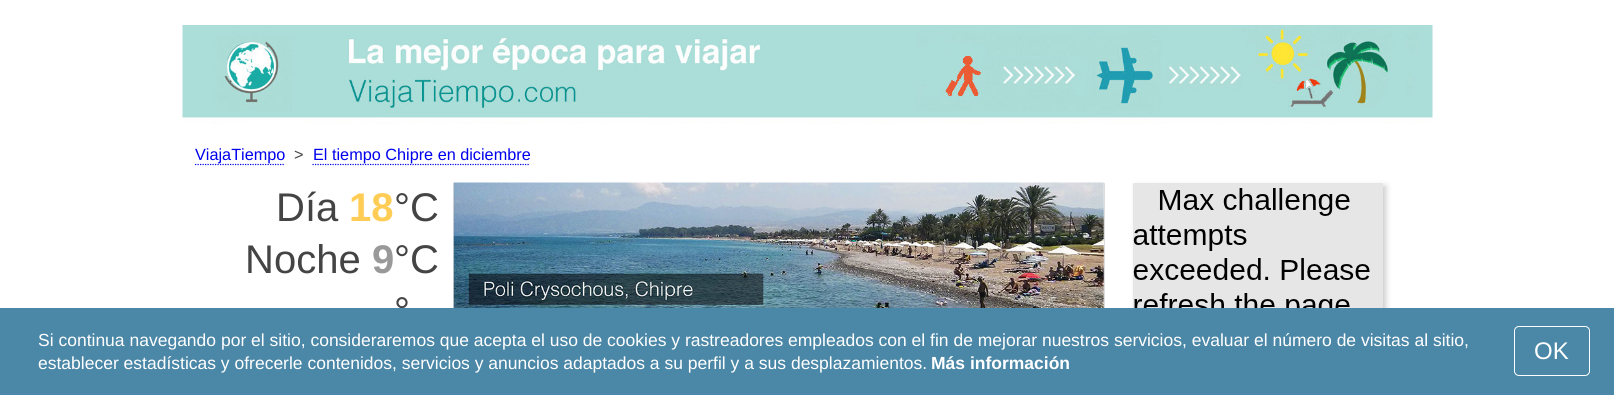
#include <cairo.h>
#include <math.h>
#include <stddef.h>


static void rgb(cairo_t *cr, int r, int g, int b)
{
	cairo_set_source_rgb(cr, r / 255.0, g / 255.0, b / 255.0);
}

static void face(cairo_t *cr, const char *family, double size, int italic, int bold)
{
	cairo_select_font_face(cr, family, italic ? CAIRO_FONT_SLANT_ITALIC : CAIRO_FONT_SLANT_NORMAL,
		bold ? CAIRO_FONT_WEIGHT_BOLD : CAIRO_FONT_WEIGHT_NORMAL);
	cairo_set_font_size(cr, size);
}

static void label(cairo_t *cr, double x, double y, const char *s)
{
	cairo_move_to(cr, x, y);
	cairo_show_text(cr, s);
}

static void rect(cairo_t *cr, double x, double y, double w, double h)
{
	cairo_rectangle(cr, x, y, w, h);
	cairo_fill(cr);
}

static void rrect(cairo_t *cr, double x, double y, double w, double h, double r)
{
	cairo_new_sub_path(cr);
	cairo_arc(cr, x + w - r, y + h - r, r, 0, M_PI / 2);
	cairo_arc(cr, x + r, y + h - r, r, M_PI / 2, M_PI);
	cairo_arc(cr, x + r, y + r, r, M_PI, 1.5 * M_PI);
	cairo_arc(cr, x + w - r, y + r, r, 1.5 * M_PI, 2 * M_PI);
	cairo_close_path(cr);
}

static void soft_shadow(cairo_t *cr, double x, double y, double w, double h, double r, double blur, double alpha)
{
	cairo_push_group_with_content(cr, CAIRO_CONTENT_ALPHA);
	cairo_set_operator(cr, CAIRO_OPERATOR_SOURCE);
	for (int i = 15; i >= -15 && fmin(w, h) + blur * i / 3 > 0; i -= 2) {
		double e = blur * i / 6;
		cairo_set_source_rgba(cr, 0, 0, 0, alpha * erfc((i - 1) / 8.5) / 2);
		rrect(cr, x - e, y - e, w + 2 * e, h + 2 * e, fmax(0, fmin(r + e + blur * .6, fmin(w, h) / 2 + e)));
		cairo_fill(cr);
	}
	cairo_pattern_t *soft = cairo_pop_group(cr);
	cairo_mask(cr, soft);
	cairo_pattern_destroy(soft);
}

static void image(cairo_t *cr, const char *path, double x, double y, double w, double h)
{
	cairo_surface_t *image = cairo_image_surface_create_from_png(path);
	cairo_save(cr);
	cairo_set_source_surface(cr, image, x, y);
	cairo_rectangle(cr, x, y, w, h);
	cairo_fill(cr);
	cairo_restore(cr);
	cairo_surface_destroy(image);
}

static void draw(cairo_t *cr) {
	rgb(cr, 255, 255, 255);
	cairo_paint(cr);
	image(cr, "image0.png", 182, 25, 1251, 99);
	cairo_new_path(cr);
	cairo_move_to(cr, 195, 164.5);
	cairo_line_to(cr, 285, 164.5);
	rgb(cr, 0, 0, 238);
	cairo_set_line_width(cr, 1.2);
	cairo_set_dash(cr, (double[]){1.25, 1.25}, 2, 0);
	cairo_stroke(cr);
	face(cr, "Liberation Sans", 16.25, 0, 0);
	label(cr, 195, 160, "ViajaTiempo");
	rgb(cr, 68, 68, 68);
	label(cr, 294, 160, ">");
	cairo_new_path(cr);
	cairo_move_to(cr, 312.5, 164.5);
	cairo_line_to(cr, 530, 164.5);
	rgb(cr, 0, 0, 238);
	cairo_stroke(cr);
	label(cr, 313, 160, "El tiempo Chipre en diciembre");
	face(cr, "Liberation Sans", 40, 0, 0);
	rgb(cr, 68, 68, 68);
	label(cr, 276, 221, "Día");
	face(cr, "Liberation Sans", 40, 0, 1);
	rgb(cr, 255, 205, 86);
	label(cr, 349, 221, "18");
	face(cr, "Liberation Sans", 40, 0, 0);
	rgb(cr, 68, 68, 68);
	label(cr, 394, 221, "°C");
	label(cr, 245, 273, "Noche");
	face(cr, "Liberation Sans", 40, 0, 1);
	rgb(cr, 153, 153, 153);
	label(cr, 372, 273, "9");
	face(cr, "Liberation Sans", 40, 0, 0);
	rgb(cr, 68, 68, 68);
	label(cr, 394, 273, "°C");
	label(cr, 394, 325, "°");
	rgb(cr, 221, 221, 221);
	rect(cr, 1104, 183, 1, 125);
	rect(cr, 453, 183, 1, 125);
	image(cr, "image1.png", 453, 182, 651, 126);
	cairo_save(cr);
	cairo_set_fill_rule(cr, CAIRO_FILL_RULE_EVEN_ODD);
	cairo_new_path(cr);
	cairo_move_to(cr, 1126, 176);
	cairo_line_to(cr, 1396, 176);
	cairo_line_to(cr, 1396, 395);
	cairo_line_to(cr, 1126, 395);
	cairo_close_path(cr);
	cairo_move_to(cr, 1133, 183);
	cairo_line_to(cr, 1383, 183);
	cairo_line_to(cr, 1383, 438);
	cairo_line_to(cr, 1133, 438);
	cairo_close_path(cr);
	cairo_clip(cr);
	rgb(cr, 0, 0, 0);
	soft_shadow(cr, 1136, 186, 250, 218, 0, 3, 0.2);
	cairo_restore(cr);
	cairo_set_source_rgba(cr, 0, 0, 0, 0.1);
	rect(cr, 1133, 183, 250, 125);
	image(cr, "image2.png", 1133, 188, 237, 120);
	rgb(cr, 75, 135, 167);
	rect(cr, 0, 308, 1614, 87);
	face(cr, "Liberation Sans", 17.5, 0, 0);
	rgb(cr, 255, 255, 255);
	label(cr, 38, 346, "Si continua navegando por el sitio, consideraremos que acepta el uso de cookies y rastreadores empleados con el fin de mejorar nuestros servicios, evaluar el número de visitas al sitio,");
	label(cr, 38, 369, "establecer estadísticas y ofrecerle contenidos, servicios y anuncios adaptados a su perfil y a sus desplazamientos.");
	face(cr, "Liberation Sans", 17.5, 0, 1);
	label(cr, 931, 369, "Más información");
	rrect(cr, 1514.5, 326.5, 75, 49, 4.5);
	cairo_set_line_width(cr, 1);
	cairo_set_dash(cr, NULL, 0, 0);
	cairo_stroke(cr);
	face(cr, "Liberation Sans", 24, 0, 0);
	label(cr, 1534, 359, "OK");
}

int main(void) {
	cairo_surface_t *surface = cairo_image_surface_create(CAIRO_FORMAT_RGB24, 1614, 395);
	cairo_t *cr = cairo_create(surface);
	cairo_font_options_t *options = cairo_font_options_create();
	cairo_font_options_set_hint_metrics(options, CAIRO_HINT_METRICS_OFF);
	cairo_font_options_set_hint_style(options, CAIRO_HINT_STYLE_NONE);
	cairo_set_font_options(cr, options);
	cairo_set_miter_limit(cr, 4);
	draw(cr);
	cairo_surface_write_to_png(surface, "render.png");
	cairo_font_options_destroy(options);
	cairo_destroy(cr);
	cairo_surface_destroy(surface);
	return 0;
}
